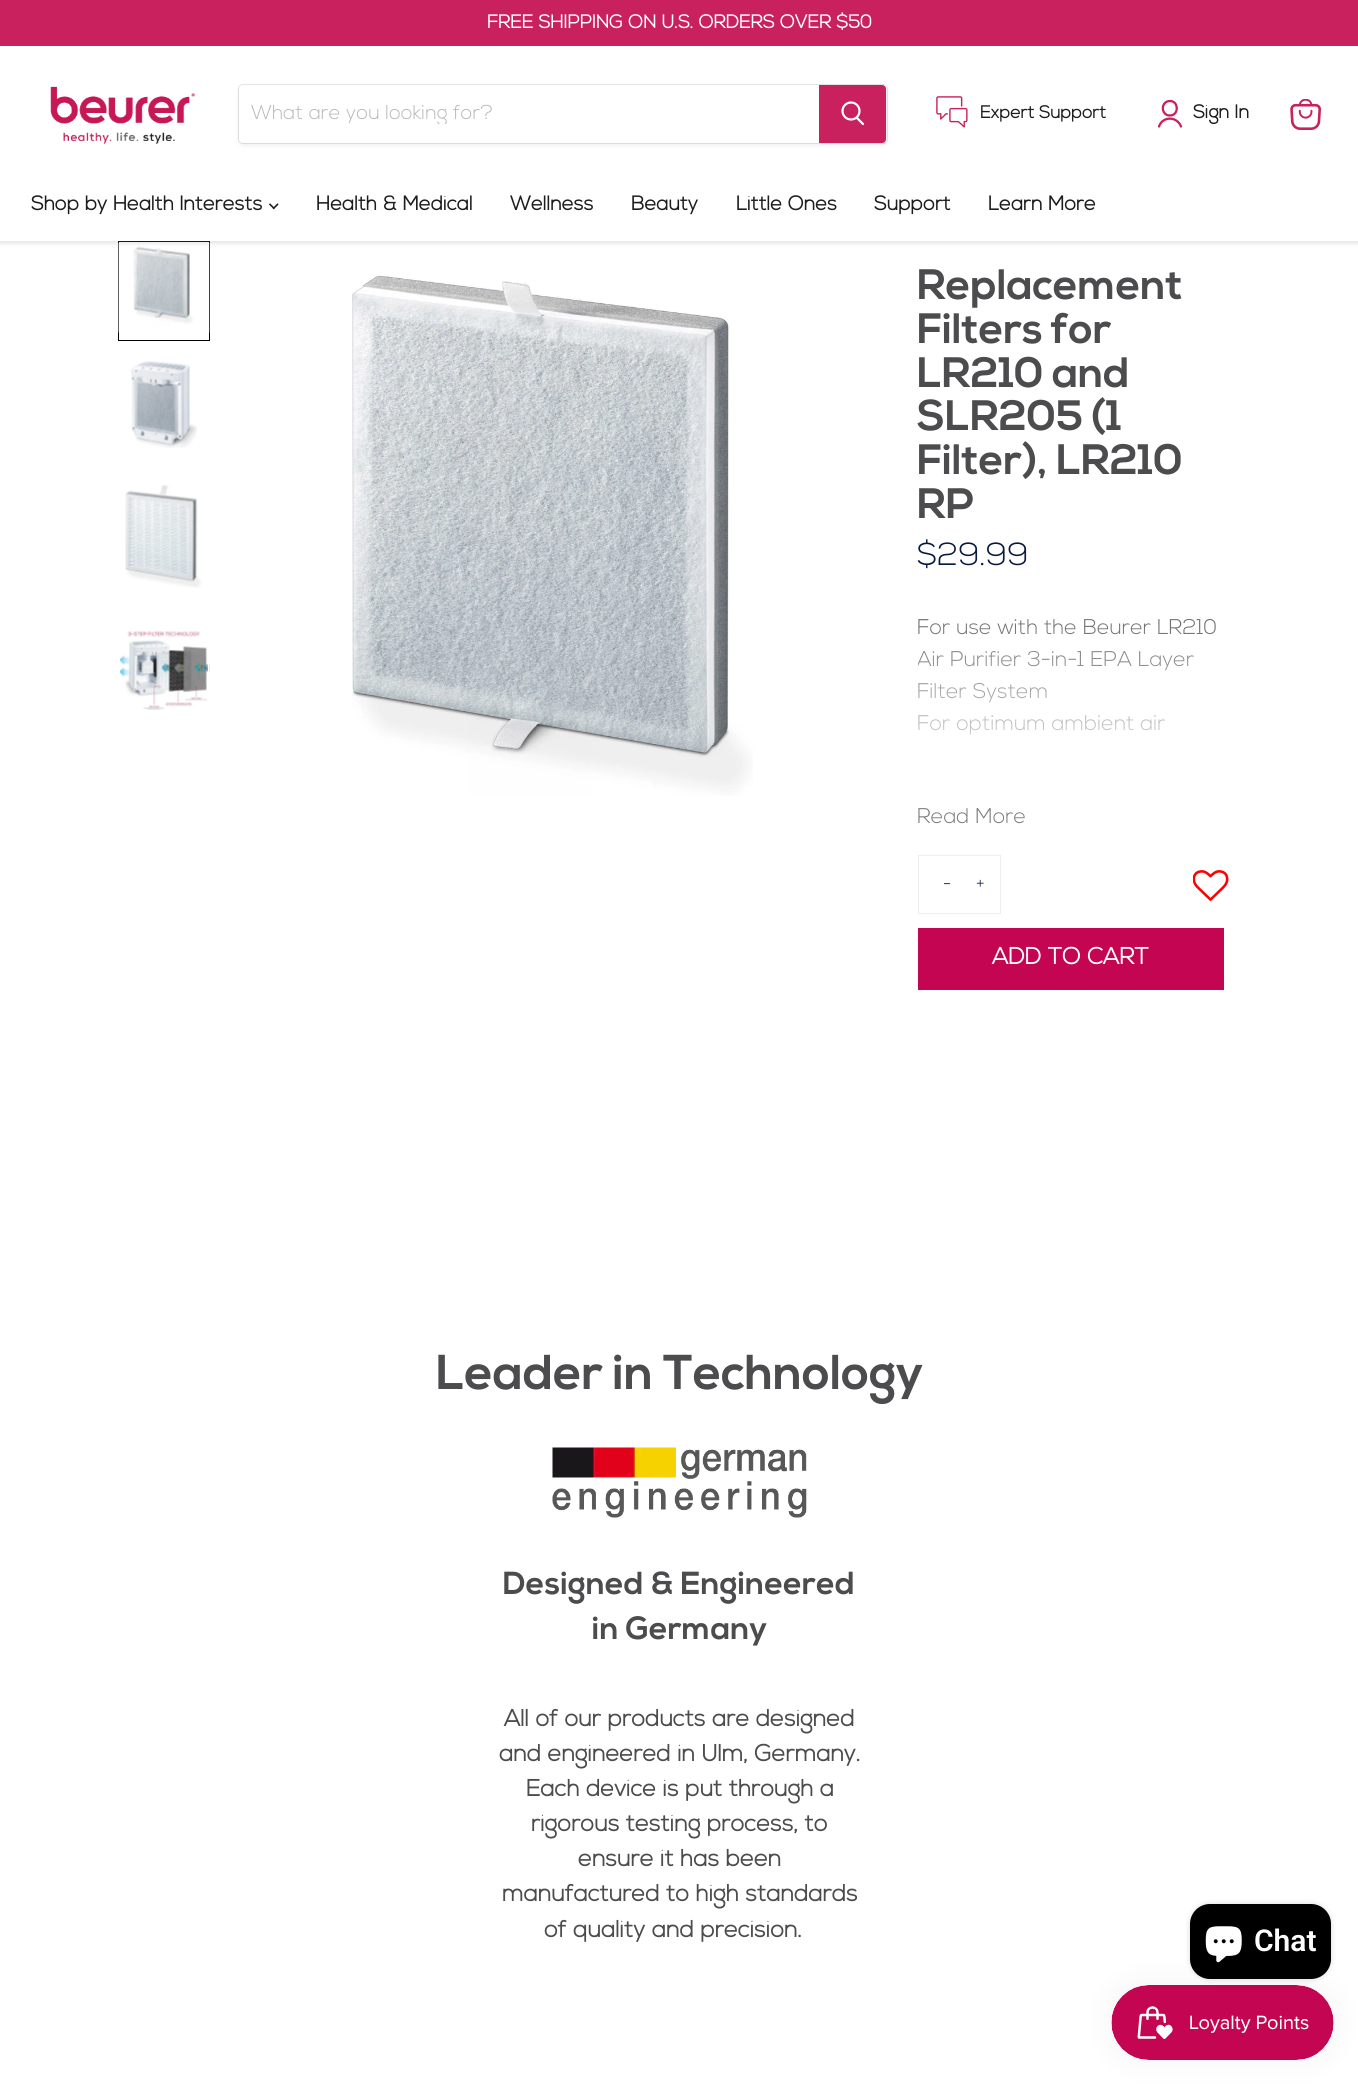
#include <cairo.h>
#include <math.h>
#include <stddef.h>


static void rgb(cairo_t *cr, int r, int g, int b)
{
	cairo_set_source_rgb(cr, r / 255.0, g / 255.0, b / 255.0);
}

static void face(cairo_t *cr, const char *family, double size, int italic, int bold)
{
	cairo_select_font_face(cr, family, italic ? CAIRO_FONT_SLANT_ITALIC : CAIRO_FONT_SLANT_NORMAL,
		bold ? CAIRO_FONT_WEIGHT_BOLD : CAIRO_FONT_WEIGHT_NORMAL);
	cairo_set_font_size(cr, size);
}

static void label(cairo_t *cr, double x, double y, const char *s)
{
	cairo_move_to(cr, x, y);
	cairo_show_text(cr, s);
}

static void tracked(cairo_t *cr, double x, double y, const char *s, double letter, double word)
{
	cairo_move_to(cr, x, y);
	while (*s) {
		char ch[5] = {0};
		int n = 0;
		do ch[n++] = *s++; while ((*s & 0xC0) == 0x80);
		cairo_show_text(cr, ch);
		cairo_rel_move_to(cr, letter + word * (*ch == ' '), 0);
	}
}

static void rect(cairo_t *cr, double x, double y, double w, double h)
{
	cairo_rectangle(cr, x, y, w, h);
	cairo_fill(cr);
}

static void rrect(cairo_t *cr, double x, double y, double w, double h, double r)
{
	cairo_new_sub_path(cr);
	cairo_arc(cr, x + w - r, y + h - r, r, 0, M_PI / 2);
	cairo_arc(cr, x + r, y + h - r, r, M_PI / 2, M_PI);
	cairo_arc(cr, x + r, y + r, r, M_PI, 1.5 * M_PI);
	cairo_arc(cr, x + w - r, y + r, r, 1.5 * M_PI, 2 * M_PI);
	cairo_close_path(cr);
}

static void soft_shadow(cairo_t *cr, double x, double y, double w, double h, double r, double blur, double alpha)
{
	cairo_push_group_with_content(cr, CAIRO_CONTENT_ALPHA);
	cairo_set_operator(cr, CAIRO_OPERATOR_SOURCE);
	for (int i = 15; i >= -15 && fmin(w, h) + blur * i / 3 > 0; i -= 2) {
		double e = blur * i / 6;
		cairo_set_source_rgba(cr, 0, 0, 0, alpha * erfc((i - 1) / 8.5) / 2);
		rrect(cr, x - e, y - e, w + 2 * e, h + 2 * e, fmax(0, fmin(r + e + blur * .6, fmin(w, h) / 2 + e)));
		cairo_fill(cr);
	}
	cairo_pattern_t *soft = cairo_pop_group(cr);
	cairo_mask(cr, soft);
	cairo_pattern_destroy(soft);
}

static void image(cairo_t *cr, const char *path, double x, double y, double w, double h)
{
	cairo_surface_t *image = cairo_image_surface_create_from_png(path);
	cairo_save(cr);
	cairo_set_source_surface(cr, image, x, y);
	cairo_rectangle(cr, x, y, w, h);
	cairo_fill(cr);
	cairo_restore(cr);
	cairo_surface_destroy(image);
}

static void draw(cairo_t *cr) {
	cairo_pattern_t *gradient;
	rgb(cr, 255, 255, 255);
	cairo_paint(cr);
	rgb(cr, 200, 33, 93);
	rect(cr, 0, 0, 1358, 46);
	face(cr, "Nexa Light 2", 18.75, 0, 1);
	rgb(cr, 255, 255, 255);
	label(cr, 487, 28, "FREE SHIPPING ON U.S. ORDERS OVER $50");
	cairo_rectangle(cr, 118.5, 241.5, 91, 99);
	rgb(cr, 0, 0, 0);
	cairo_set_line_width(cr, 1);
	cairo_stroke(cr);
	image(cr, "image4.png", 118, 243, 92, 90);
	rgb(cr, 128, 128, 128);
	soft_shadow(cr, 0, 48, 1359, 195, 0, 2.5, 0.25);
	rgb(cr, 255, 255, 255);
	rect(cr, 0, 46, 1358, 195);
	image(cr, "image0.png", 50, 86, 146, 58);
	rgb(cr, 128, 128, 128);
	soft_shadow(cr, 238, 86, 650, 60, 5, 2, 0.11);
	rrect(cr, 238.5, 84.5, 649, 59, 4.5);
	cairo_set_source_rgba(cr, 0.502, 0.502, 0.502, 0.2);
	cairo_stroke(cr);
	rgb(cr, 255, 255, 255);
	cairo_new_path(cr);
	cairo_move_to(cr, 243, 85);
	cairo_line_to(cr, 819, 85);
	cairo_line_to(cr, 819, 143);
	cairo_line_to(cr, 243, 143);
	cairo_curve_to(cr, 241, 143, 239, 141, 239, 139);
	cairo_line_to(cr, 239, 89);
	cairo_curve_to(cr, 239, 87, 241, 85, 243, 85);
	cairo_close_path(cr);
	cairo_fill(cr);
	cairo_save(cr);
	cairo_rectangle(cr, 251, 104, 555, 20);
	cairo_clip(cr);
	face(cr, "Nexa Light 2 Light", 20, 0, 0);
	rgb(cr, 184, 184, 184);
	label(cr, 251, 119, "What are you looking for?");
	cairo_restore(cr);
	rgb(cr, 200, 33, 93);
	cairo_new_path(cr);
	cairo_move_to(cr, 819.5, 85.5);
	cairo_line_to(cr, 882, 85.5);
	cairo_curve_to(cr, 884, 85.5, 885.5, 87, 885.5, 89);
	cairo_line_to(cr, 885.5, 139);
	cairo_curve_to(cr, 885.5, 141, 884, 142.5, 882, 142.5);
	cairo_line_to(cr, 819.5, 142.5);
	cairo_close_path(cr);
	cairo_fill_preserve(cr);
	cairo_stroke(cr);
	cairo_new_path(cr);
	cairo_move_to(cr, 863, 124);
	cairo_line_to(cr, 857, 118);
	rgb(cr, 255, 255, 255);
	cairo_set_line_width(cr, 2.2);
	cairo_set_line_cap(cr, CAIRO_LINE_CAP_ROUND);
	cairo_stroke(cr);
	cairo_arc(cr, 851, 111, 8.5, 0, 2 * M_PI);
	cairo_set_line_cap(cr, CAIRO_LINE_CAP_BUTT);
	cairo_stroke(cr);
	image(cr, "image1.png", 936, 96, 32, 32);
	face(cr, "Nexa Light 2", 17.5, 0, 1);
	rgb(cr, 29, 29, 29);
	label(cr, 980, 118, "Expert Support");
	cairo_new_path(cr);
	cairo_move_to(cr, 1170, 115.5);
	cairo_curve_to(cr, 1179, 115.5, 1179, 101, 1170, 101);
	cairo_curve_to(cr, 1160.5, 101, 1160.5, 115.5, 1170, 115.5);
	cairo_close_path(cr);
	cairo_move_to(cr, 1181, 126.5);
	cairo_curve_to(cr, 1177, 116, 1162.5, 116, 1159, 126.5);
	rgb(cr, 200, 33, 93);
	cairo_set_line_width(cr, 2.3);
	cairo_set_line_cap(cr, CAIRO_LINE_CAP_ROUND);
	cairo_set_line_join(cr, CAIRO_LINE_JOIN_ROUND);
	cairo_stroke(cr);
	face(cr, "Nexa Light 2", 18.75, 0, 1);
	rgb(cr, 29, 29, 29);
	label(cr, 1193, 118, "Sign In");
	image(cr, "image2.png", 1290, 99, 31, 31);
	face(cr, "Nexa Light 2", 20, 0, 1);
	label(cr, 31, 210, "Shop by Health Interests");
	image(cr, "image3.png", 269, 203, 10, 7);
	label(cr, 316, 210, "Health & Medical");
	label(cr, 510, 210, "Wellness");
	label(cr, 631, 210, "Beauty");
	label(cr, 736, 210, "Little Ones");
	label(cr, 874, 210, "Support");
	label(cr, 988, 210, "Learn More");
	image(cr, "image5.png", 131, 361, 66, 87);
	image(cr, "image6.png", 125, 485, 77, 103);
	image(cr, "image7.png", 120, 631, 90, 79);
	cairo_save(cr);
	cairo_rectangle(cr, 118, 241, 92, 469);
	cairo_clip(cr);
	cairo_rectangle(cr, 119.5, 624.5, 89, 96);
	rgb(cr, 255, 255, 255);
	cairo_set_line_width(cr, 1);
	cairo_set_line_cap(cr, CAIRO_LINE_CAP_BUTT);
	cairo_set_line_join(cr, CAIRO_LINE_JOIN_MITER);
	cairo_stroke(cr);
	cairo_restore(cr);
	image(cr, "image8.png", 352, 275, 401, 521);
	face(cr, "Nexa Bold", 42.5, 0, 1);
	rgb(cr, 76, 76, 78);
	label(cr, 917, 299, "Replacement");
	label(cr, 917, 343, "Filters for");
	label(cr, 917, 387, "LR210 and");
	label(cr, 917, 430, "SLR205 (1");
	label(cr, 917, 474, "Filter), LR210");
	label(cr, 917, 518, "RP");
	face(cr, "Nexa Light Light", 31.9, 0, 0);
	rgb(cr, 8, 25, 62);
	label(cr, 917, 565, "$29.99");
	face(cr, "Nexa Light Light", 21.25, 0, 0);
	rgb(cr, 102, 102, 102);
	label(cr, 917, 634, "For use with the Beurer LR210");
	cairo_save(cr);
	cairo_rectangle(cr, 918, 613, 323, 187);
	cairo_clip(cr);
	label(cr, 917, 666, "Air Purifier 3-in-1 EPA Layer");
	cairo_restore(cr);
	label(cr, 917, 698, "Filter System");
	label(cr, 917, 730, "For optimum ambient air");
	gradient = cairo_pattern_create_linear(1079, 613, 1079, 800);
	cairo_pattern_add_color_stop_rgba(gradient, 0, 1, 1, 1, 0);
	cairo_pattern_add_color_stop_rgba(gradient, 1, 1, 1, 1, 1);
	cairo_set_source(cr, gradient);
	cairo_pattern_destroy(gradient);
	rect(cr, 918, 619, 298, 116);
	rgb(cr, 122, 122, 122);
	label(cr, 917, 823, "Read More");
	cairo_rectangle(cr, 918.5, 855.5, 82, 58);
	rgb(cr, 238, 238, 238);
	cairo_set_line_width(cr, 1);
	cairo_set_line_cap(cr, CAIRO_LINE_CAP_BUTT);
	cairo_set_line_join(cr, CAIRO_LINE_JOIN_MITER);
	cairo_stroke(cr);
	face(cr, "Nexa Light Light", 17, 0, 0);
	rgb(cr, 8, 25, 62);
	label(cr, 943, 889, "-");
	label(cr, 976, 889, "+");
	image(cr, "image9.png", 1193, 870, 36, 31);
	rgb(cr, 196, 5, 82);
	rect(cr, 918, 928, 306, 62);
	face(cr, "Nexa Light", 23.4, 0, 1);
	rgb(cr, 255, 255, 255);
	label(cr, 992, 964, "ADD TO CART");
	face(cr, "Nexa Bold", 48.9, 0, 1);
	rgb(cr, 76, 76, 78);
	label(cr, 436, 1389, "Leader in Technology");
	image(cr, "image10.png", 552, 1447, 255, 71);
	face(cr, "Nexa Bold", 31.9, 0, 1);
	tracked(cr, 503, 1594, "Designed & Engineered", 0.25, 0);
	tracked(cr, 592, 1639, "in Germany", 0.25, 0);
	face(cr, "Nexa Light", 23.4, 0, 1);
	label(cr, 504, 1726, "All of our products are designed");
	label(cr, 499, 1761, "and engineered in Ulm, Germany.");
	label(cr, 526, 1796, "Each device is put through a");
	label(cr, 531, 1831, "rigorous testing process, to");
	label(cr, 578, 1866, "ensure it has been");
	label(cr, 502, 1901, "manufactured to high standards");
	label(cr, 544, 1937, "of quality and precision.");
	rgb(cr, 0, 0, 0);
	soft_shadow(cr, 1190, 1904, 141, 75, 20, 3, 0.15);
	rgb(cr, 0, 0, 0);
	rrect(cr, 1190, 1904, 141, 75, 20);
	cairo_fill(cr);
	image(cr, "image11.png", 1205, 1926, 37, 37);
	face(cr, "Roboto SemiBold", 30, 0, 0);
	rgb(cr, 255, 255, 255);
	label(cr, 1254, 1951, "Chat");
	rgb(cr, 0, 0, 0);
	soft_shadow(cr, 1111, 1985, 223, 75, 37.5, 15.5, 0.05);
	image(cr, "image12.png", 1111, 1985, 223, 75);
}

int main(void) {
	cairo_surface_t *surface = cairo_image_surface_create(CAIRO_FORMAT_RGB24, 1358, 2084);
	cairo_t *cr = cairo_create(surface);
	cairo_font_options_t *options = cairo_font_options_create();
	cairo_font_options_set_hint_metrics(options, CAIRO_HINT_METRICS_OFF);
	cairo_font_options_set_hint_style(options, CAIRO_HINT_STYLE_NONE);
	cairo_set_font_options(cr, options);
	cairo_set_miter_limit(cr, 4);
	draw(cr);
	cairo_surface_write_to_png(surface, "render.png");
	cairo_font_options_destroy(options);
	cairo_destroy(cr);
	cairo_surface_destroy(surface);
	return 0;
}
